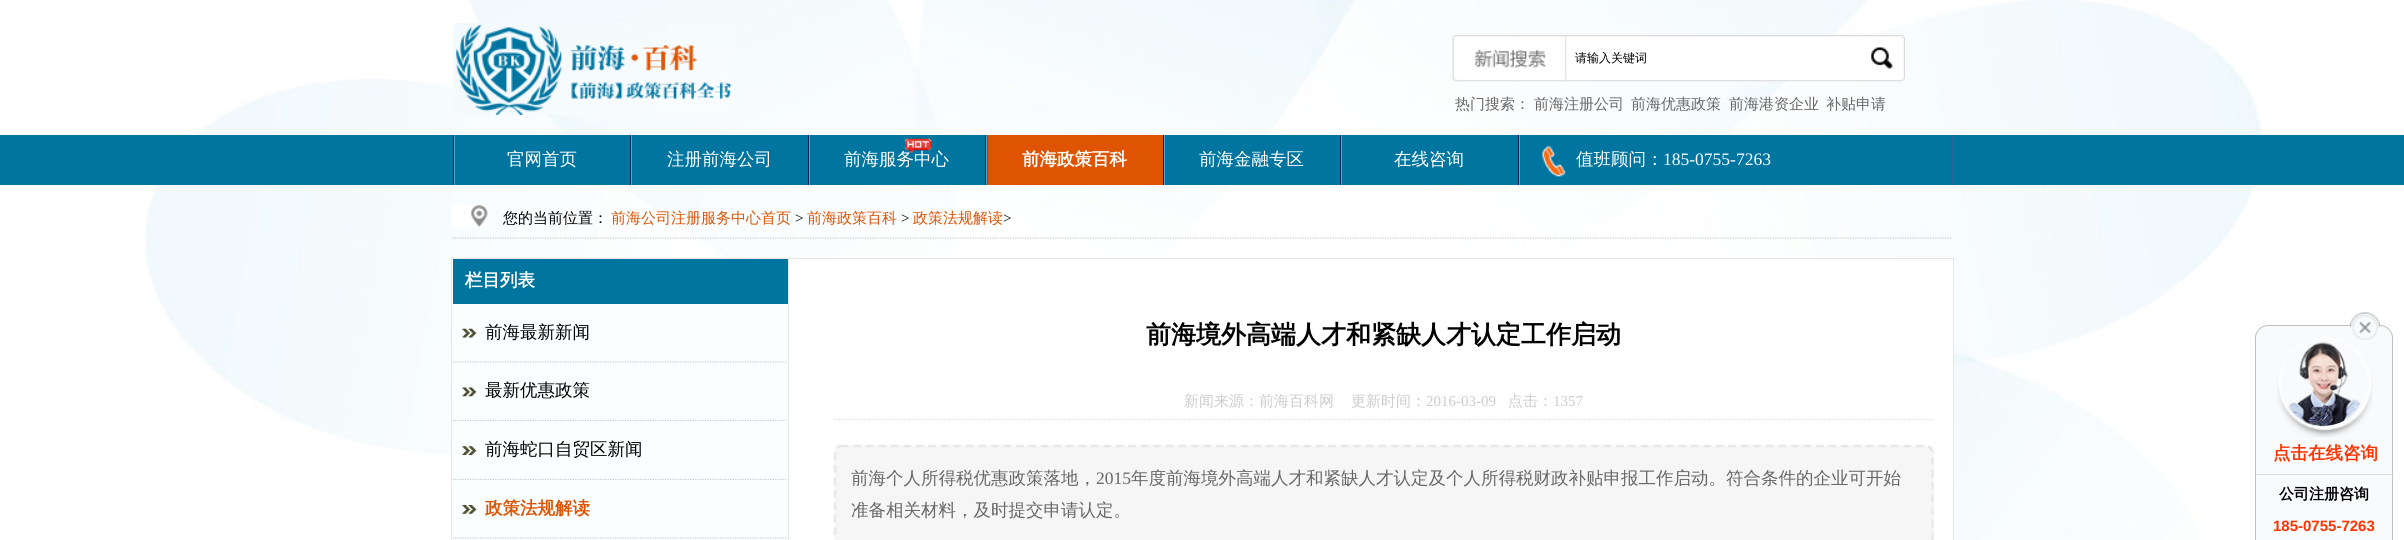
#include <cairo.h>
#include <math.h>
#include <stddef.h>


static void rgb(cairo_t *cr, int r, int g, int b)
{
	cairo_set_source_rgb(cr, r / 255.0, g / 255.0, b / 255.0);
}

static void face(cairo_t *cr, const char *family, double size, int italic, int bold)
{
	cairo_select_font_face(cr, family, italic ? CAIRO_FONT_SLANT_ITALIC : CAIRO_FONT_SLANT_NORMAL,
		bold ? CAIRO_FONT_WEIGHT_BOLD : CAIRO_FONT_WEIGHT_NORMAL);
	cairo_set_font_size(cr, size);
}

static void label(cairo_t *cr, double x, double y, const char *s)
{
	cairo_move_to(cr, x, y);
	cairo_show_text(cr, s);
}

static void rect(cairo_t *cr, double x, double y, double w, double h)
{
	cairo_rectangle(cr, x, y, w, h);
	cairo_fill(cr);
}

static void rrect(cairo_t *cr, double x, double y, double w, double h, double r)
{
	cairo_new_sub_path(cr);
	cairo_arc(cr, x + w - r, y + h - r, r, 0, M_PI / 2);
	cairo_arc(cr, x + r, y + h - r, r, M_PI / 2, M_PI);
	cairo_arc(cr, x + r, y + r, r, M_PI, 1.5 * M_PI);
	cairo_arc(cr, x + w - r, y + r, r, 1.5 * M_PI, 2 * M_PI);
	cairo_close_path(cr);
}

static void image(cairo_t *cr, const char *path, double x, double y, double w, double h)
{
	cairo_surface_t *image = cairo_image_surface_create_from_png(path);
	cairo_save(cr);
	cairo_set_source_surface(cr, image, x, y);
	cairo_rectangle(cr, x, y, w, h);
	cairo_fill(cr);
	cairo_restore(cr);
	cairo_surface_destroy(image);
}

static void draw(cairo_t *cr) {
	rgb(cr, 255, 255, 255);
	cairo_paint(cr);
	image(cr, "image0.png", 145, 0, 2117, 540);
	image(cr, "image1.png", 453, 23, 279, 92);
	image(cr, "image2.png", 1452, 35, 453, 47);
	face(cr, "WenQuanYi Zen Hei Medium", 12, 0, 0);
	rgb(cr, 0, 0, 0);
	label(cr, 1575, 62, "请输入关键词");
	image(cr, "image3.png", 1871, 47, 22, 22);
	face(cr, "WenQuanYi Zen Hei Medium", 15, 0, 0);
	rgb(cr, 102, 102, 102);
	label(cr, 1455, 109, "热门搜索：");
	label(cr, 1534, 109, "前海注册公司");
	label(cr, 1631, 109, "前海优惠政策");
	label(cr, 1729, 109, "前海港资企业");
	label(cr, 1826, 109, "补贴申请");
	rgb(cr, 0, 117, 160);
	rect(cr, 0, 135, 2404, 50);
	rgb(cr, 39, 102, 149);
	rect(cr, 1951, 135, 3, 50);
	rgb(cr, 0, 35, 90);
	rect(cr, 453, 135, 1, 50);
	rect(cr, 630, 135, 1, 50);
	rgb(cr, 79, 169, 208);
	rect(cr, 454, 135, 1, 50);
	face(cr, "WenQuanYi Zen Hei Medium", 17.5, 0, 0);
	rgb(cr, 255, 255, 255);
	label(cr, 844, 165, "前海服务中心");
	image(cr, "image4.png", 905, 138, 27, 15);
	label(cr, 507, 165, "官网首页");
	rgb(cr, 0, 35, 90);
	rect(cr, 808, 135, 1, 50);
	rgb(cr, 79, 169, 208);
	rect(cr, 631, 135, 1, 50);
	rgb(cr, 255, 255, 255);
	label(cr, 667, 165, "注册前海公司");
	rgb(cr, 0, 35, 90);
	rect(cr, 985, 135, 1, 50);
	rgb(cr, 79, 169, 208);
	rect(cr, 809, 135, 1, 50);
	rgb(cr, 0, 35, 90);
	rect(cr, 1163, 135, 1, 50);
	rgb(cr, 79, 169, 208);
	rect(cr, 986, 135, 1, 50);
	rgb(cr, 222, 84, 2);
	rect(cr, 988, 135, 175, 50);
	face(cr, "WenQuanYi Zen Hei", 17.5, 0, 1);
	rgb(cr, 255, 255, 255);
	label(cr, 1022, 165, "前海政策百科");
	rgb(cr, 0, 35, 90);
	rect(cr, 1340, 135, 1, 50);
	rgb(cr, 79, 169, 208);
	rect(cr, 1164, 135, 1, 50);
	face(cr, "WenQuanYi Zen Hei Medium", 17.5, 0, 0);
	rgb(cr, 255, 255, 255);
	label(cr, 1199, 165, "前海金融专区");
	rgb(cr, 0, 35, 90);
	rect(cr, 1518, 135, 1, 50);
	rgb(cr, 79, 169, 208);
	rect(cr, 1341, 135, 1, 50);
	rgb(cr, 255, 255, 255);
	label(cr, 1394, 165, "在线咨询");
	image(cr, "image5.png", 1542, 146, 24, 31);
	rgb(cr, 79, 169, 208);
	rect(cr, 1519, 135, 1, 50);
	rgb(cr, 255, 255, 255);
	label(cr, 1576, 165, "值班顾问：");
	face(cr, "Liberation Serif", 17.5, 0, 0);
	label(cr, 1663, 165, "185-0755-7263");
	image(cr, "image6.png", 452, 205, 36, 23);
	cairo_new_path(cr);
	cairo_move_to(cr, 452.5, 238);
	cairo_line_to(cr, 1952.5, 238);
	rgb(cr, 204, 204, 204);
	cairo_set_line_width(cr, 1.2);
	cairo_set_dash(cr, (double[]){1.25, 1.25}, 2, 0);
	cairo_stroke(cr);
	face(cr, "WenQuanYi Zen Hei Medium", 15, 0, 0);
	rgb(cr, 0, 0, 0);
	label(cr, 503, 223, "您的当前位置：");
	rgb(cr, 222, 84, 2);
	label(cr, 611, 223, "前海公司注册服务中心首页");
	face(cr, "Liberation Serif", 15, 0, 0);
	rgb(cr, 0, 0, 0);
	label(cr, 795, 223, ">");
	face(cr, "WenQuanYi Zen Hei Medium", 15, 0, 0);
	rgb(cr, 222, 84, 2);
	label(cr, 807, 223, "前海政策百科");
	face(cr, "Liberation Serif", 15, 0, 0);
	rgb(cr, 0, 0, 0);
	label(cr, 901, 223, ">");
	face(cr, "WenQuanYi Zen Hei Medium", 15, 0, 0);
	rgb(cr, 222, 84, 2);
	label(cr, 913, 223, "政策法规解读");
	face(cr, "Liberation Serif", 15, 0, 0);
	rgb(cr, 0, 0, 0);
	label(cr, 1003, 223, ">");
	rgb(cr, 255, 255, 255);
	cairo_rectangle(cr, 451.5, 258.5, 1502, 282);
	cairo_fill_preserve(cr);
	rgb(cr, 232, 232, 232);
	cairo_set_line_width(cr, 1);
	cairo_set_dash(cr, NULL, 0, 0);
	cairo_stroke(cr);
	rgb(cr, 250, 254, 255);
	rect(cr, 453, 304, 335, 236);
	rgb(cr, 232, 232, 232);
	rect(cr, 788, 259, 1, 281);
	rgb(cr, 0, 117, 160);
	rect(cr, 453, 259, 335, 45);
	face(cr, "WenQuanYi Zen Hei", 17.5, 0, 1);
	rgb(cr, 255, 255, 255);
	label(cr, 465, 286, "栏目列表");
	cairo_new_path(cr);
	cairo_move_to(cr, 452.5, 362);
	cairo_line_to(cr, 787.5, 362);
	rgb(cr, 204, 204, 204);
	cairo_set_line_width(cr, 1.2);
	cairo_set_dash(cr, (double[]){1.25, 1.25}, 2, 0);
	cairo_stroke(cr);
	image(cr, "image7.png", 462, 328, 15, 10);
	face(cr, "WenQuanYi Zen Hei Medium", 17.5, 0, 0);
	rgb(cr, 0, 0, 0);
	label(cr, 485, 338, "前海最新新闻");
	cairo_new_path(cr);
	cairo_move_to(cr, 452.5, 420.5);
	cairo_line_to(cr, 787.5, 420.5);
	rgb(cr, 204, 204, 204);
	cairo_stroke(cr);
	image(cr, "image8.png", 462, 387, 15, 10);
	rgb(cr, 0, 0, 0);
	label(cr, 485, 396, "最新优惠政策");
	cairo_new_path(cr);
	cairo_move_to(cr, 452.5, 479.5);
	cairo_line_to(cr, 787.5, 479.5);
	rgb(cr, 204, 204, 204);
	cairo_stroke(cr);
	image(cr, "image9.png", 462, 446, 15, 9);
	rgb(cr, 0, 0, 0);
	label(cr, 485, 455, "前海蛇口自贸区新闻");
	cairo_new_path(cr);
	cairo_move_to(cr, 452.5, 538);
	cairo_line_to(cr, 787.5, 538);
	rgb(cr, 204, 204, 204);
	cairo_stroke(cr);
	image(cr, "image10.png", 462, 505, 15, 9);
	face(cr, "WenQuanYi Zen Hei", 17.5, 0, 1);
	rgb(cr, 222, 84, 2);
	label(cr, 485, 514, "政策法规解读");
	face(cr, "WenQuanYi Zen Hei", 25, 0, 1);
	rgb(cr, 0, 0, 0);
	label(cr, 1146, 343, "前海境外高端人才和紧缺人才认定工作启动");
	cairo_new_path(cr);
	cairo_move_to(cr, 834, 419.5);
	cairo_line_to(cr, 1934, 419.5);
	rgb(cr, 223, 223, 223);
	cairo_stroke(cr);
	face(cr, "WenQuanYi Zen Hei Medium", 15, 0, 0);
	rgb(cr, 204, 204, 204);
	label(cr, 1184, 406, "新闻来源：前海百科网");
	label(cr, 1351, 406, "更新时间：");
	face(cr, "Liberation Serif", 15, 0, 0);
	label(cr, 1426, 406, "2016-03-09");
	face(cr, "WenQuanYi Zen Hei Medium", 15, 0, 0);
	label(cr, 1508, 406, "点击：");
	face(cr, "Liberation Serif", 15, 0, 0);
	label(cr, 1553, 406, "1357");
	rgb(cr, 246, 246, 246);
	rrect(cr, 834, 445, 1100, 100, 8);
	cairo_fill(cr);
	cairo_new_path(cr);
	cairo_move_to(cr, 841, 446);
	cairo_line_to(cr, 1926, 446);
	cairo_curve_to(cr, 1929.5, 446, 1932.5, 449, 1932.5, 452.5);
	cairo_line_to(cr, 1932.5, 537.5);
	cairo_curve_to(cr, 1932.5, 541, 1929.5, 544, 1926, 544);
	cairo_line_to(cr, 841, 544);
	cairo_curve_to(cr, 838, 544, 835, 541, 835, 537.5);
	cairo_line_to(cr, 835, 452.5);
	cairo_curve_to(cr, 835, 449, 838, 446, 841, 446);
	cairo_close_path(cr);
	rgb(cr, 232, 232, 232);
	cairo_set_line_width(cr, 2.5);
	cairo_set_dash(cr, (double[]){7.5, 5}, 2, 0);
	cairo_stroke(cr);
	face(cr, "WenQuanYi Zen Hei Medium", 17.5, 0, 0);
	rgb(cr, 102, 102, 102);
	label(cr, 851, 484, "前海个人所得税优惠政策落地，");
	face(cr, "Liberation Serif", 17.5, 0, 0);
	label(cr, 1096, 484, "2015");
	face(cr, "WenQuanYi Zen Hei Medium", 17.5, 0, 0);
	label(cr, 1131, 484, "年度前海境外高端人才和紧缺人才认定及个人所得税财政补贴申报工作启动。符合条件的企业可开始");
	label(cr, 851, 516, "准备相关材料，及时提交申请认定。");
	rgb(cr, 249, 250, 251);
	rrect(cr, 2255.5, 325.5, 137, 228, 12.5);
	cairo_fill_preserve(cr);
	rgb(cr, 191, 191, 191);
	cairo_set_line_width(cr, 1);
	cairo_set_dash(cr, NULL, 0, 0);
	cairo_stroke(cr);
	image(cr, "image13.png", 2288, 342, 73, 85);
	image(cr, "image12.png", 2277, 338, 96, 100);
	image(cr, "image11.png", 2350, 311, 30, 29);
	rgb(cr, 221, 221, 221);
	rect(cr, 2256, 474, 137, 1);
	face(cr, "WenQuanYi Zen Hei", 17.5, 0, 1);
	rgb(cr, 255, 51, 0);
	label(cr, 2273, 459, "点击在线咨询");
	face(cr, "WenQuanYi Zen Hei", 15, 0, 1);
	rgb(cr, 0, 0, 0);
	label(cr, 2279, 499, "公司注册咨询");
	face(cr, "Liberation Sans", 15, 0, 1);
	rgb(cr, 255, 51, 0);
	label(cr, 2273, 531, "185-0755-7263");
}

int main(void) {
	cairo_surface_t *surface = cairo_image_surface_create(CAIRO_FORMAT_RGB24, 2404, 540);
	cairo_t *cr = cairo_create(surface);
	cairo_font_options_t *options = cairo_font_options_create();
	cairo_font_options_set_hint_metrics(options, CAIRO_HINT_METRICS_OFF);
	cairo_font_options_set_hint_style(options, CAIRO_HINT_STYLE_NONE);
	cairo_set_font_options(cr, options);
	cairo_set_miter_limit(cr, 4);
	draw(cr);
	cairo_surface_write_to_png(surface, "render.png");
	cairo_font_options_destroy(options);
	cairo_destroy(cr);
	cairo_surface_destroy(surface);
	return 0;
}
